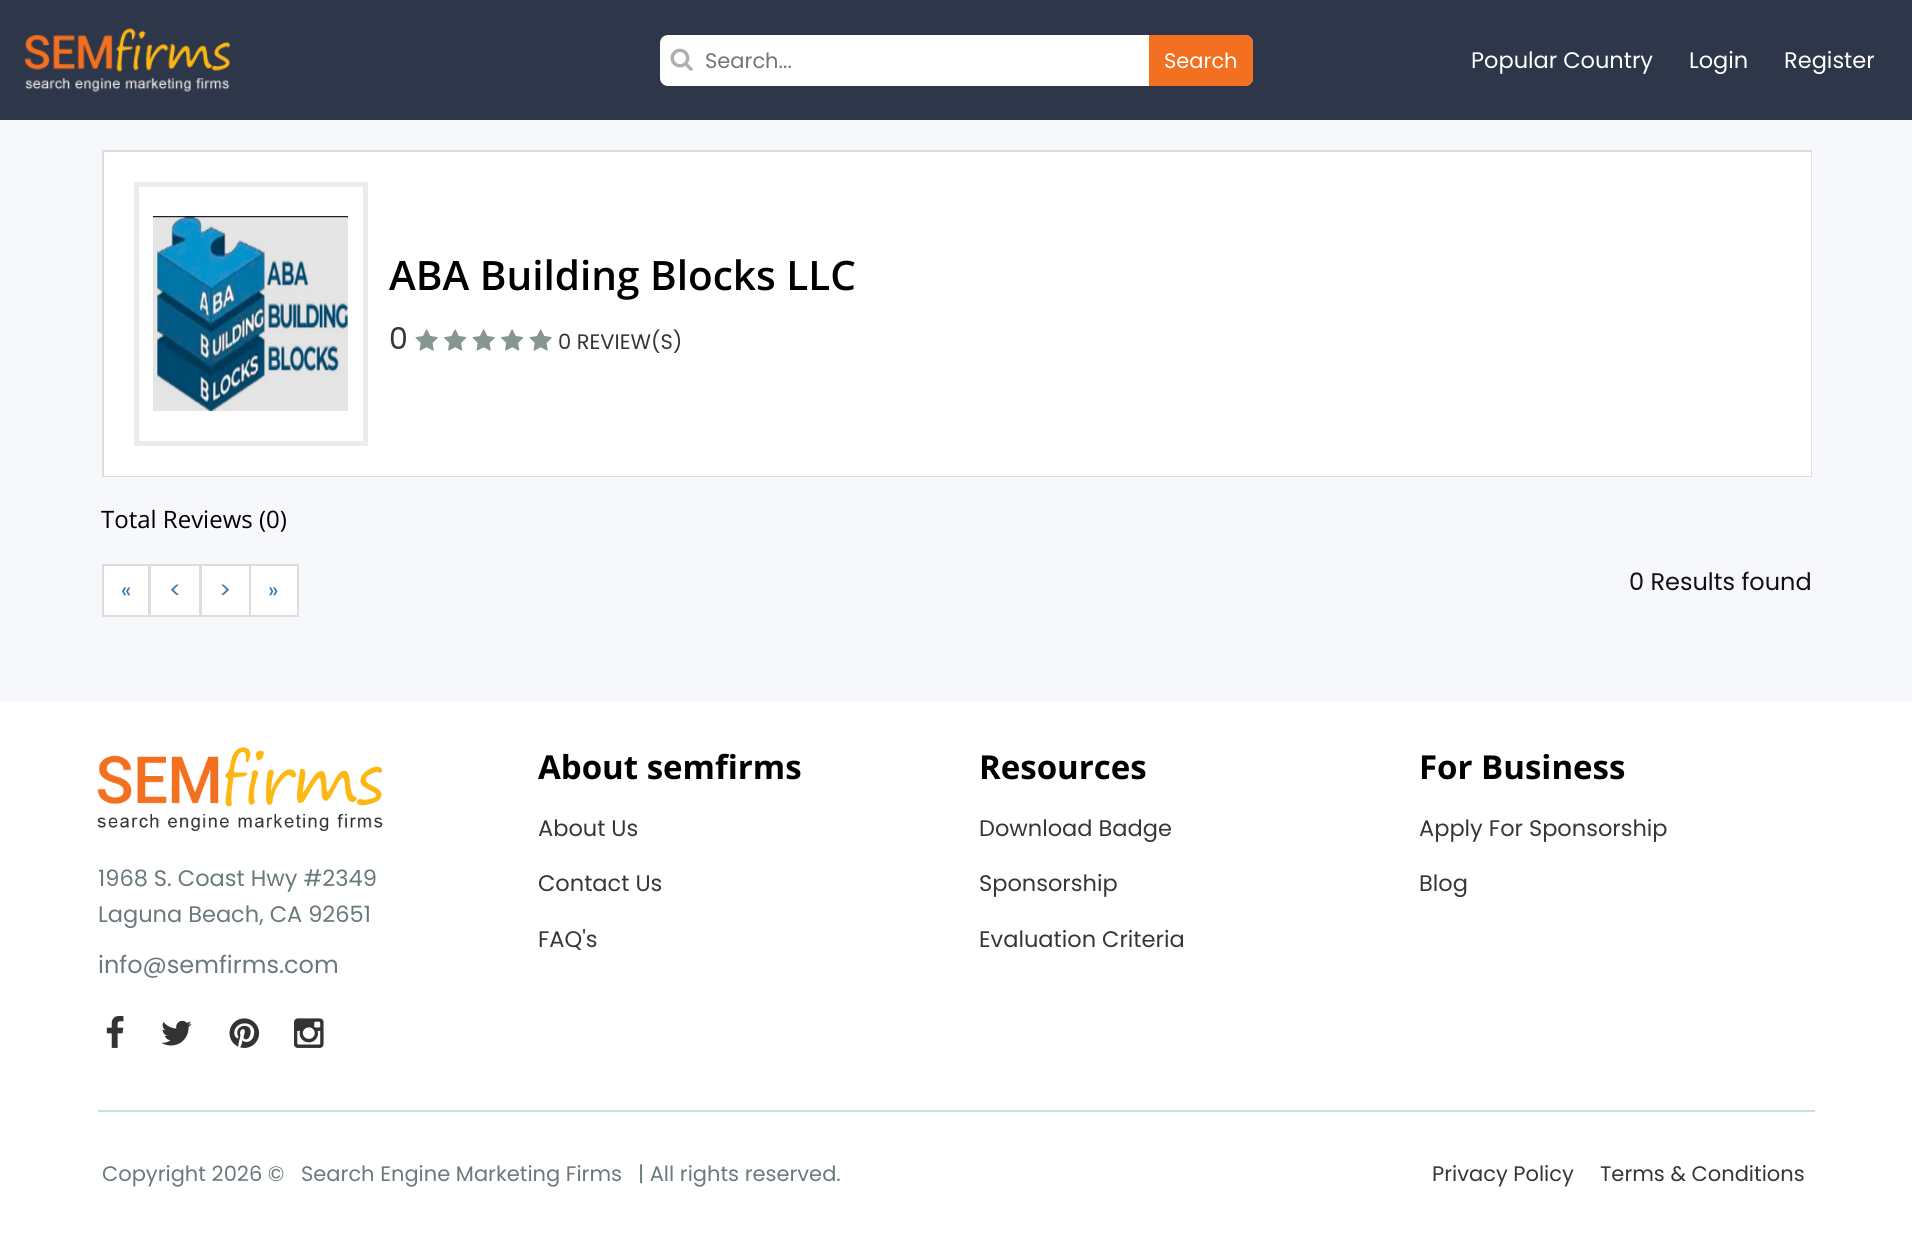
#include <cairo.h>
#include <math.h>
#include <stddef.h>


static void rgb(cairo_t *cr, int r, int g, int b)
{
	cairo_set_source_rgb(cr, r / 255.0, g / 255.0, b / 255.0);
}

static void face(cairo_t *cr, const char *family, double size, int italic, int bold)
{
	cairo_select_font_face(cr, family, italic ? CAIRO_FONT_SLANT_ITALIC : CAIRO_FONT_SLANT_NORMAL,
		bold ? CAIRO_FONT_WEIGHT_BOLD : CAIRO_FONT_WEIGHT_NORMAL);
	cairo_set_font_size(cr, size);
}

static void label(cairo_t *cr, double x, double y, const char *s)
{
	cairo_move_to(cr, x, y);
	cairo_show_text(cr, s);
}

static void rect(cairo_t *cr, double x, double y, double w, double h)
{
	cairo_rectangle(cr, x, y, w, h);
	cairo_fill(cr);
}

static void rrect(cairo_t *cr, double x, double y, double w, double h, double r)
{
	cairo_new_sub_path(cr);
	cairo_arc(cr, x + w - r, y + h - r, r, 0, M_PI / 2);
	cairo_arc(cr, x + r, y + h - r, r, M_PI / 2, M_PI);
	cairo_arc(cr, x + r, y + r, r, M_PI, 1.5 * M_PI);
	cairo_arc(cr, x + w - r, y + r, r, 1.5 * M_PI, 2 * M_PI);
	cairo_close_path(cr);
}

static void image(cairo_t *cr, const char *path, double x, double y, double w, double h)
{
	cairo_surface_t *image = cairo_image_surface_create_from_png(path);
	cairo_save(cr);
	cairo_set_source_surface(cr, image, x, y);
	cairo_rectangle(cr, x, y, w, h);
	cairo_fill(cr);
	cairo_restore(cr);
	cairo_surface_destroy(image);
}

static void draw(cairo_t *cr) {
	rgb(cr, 255, 255, 255);
	cairo_paint(cr);
	rgb(cr, 46, 54, 73);
	rect(cr, 0, 0, 1912, 120);
	image(cr, "image0.png", 24, 28, 207, 64);
	rgb(cr, 255, 255, 255);
	rrect(cr, 660, 35, 593, 51, 8);
	cairo_fill(cr);
	image(cr, "image1.png", 670, 48, 23, 23);
	face(cr, "Poppins", 21, 0, 0);
	rgb(cr, 117, 117, 117);
	label(cr, 705, 68, "Search...");
	rgb(cr, 243, 112, 33);
	cairo_new_path(cr);
	cairo_move_to(cr, 1149, 35);
	cairo_line_to(cr, 1245, 35);
	cairo_curve_to(cr, 1249.5, 35, 1253, 38.5, 1253, 43);
	cairo_line_to(cr, 1253, 78);
	cairo_curve_to(cr, 1253, 82.5, 1249.5, 86, 1245, 86);
	cairo_line_to(cr, 1149, 86);
	cairo_close_path(cr);
	cairo_fill(cr);
	rgb(cr, 255, 255, 255);
	label(cr, 1164, 68, "Search");
	face(cr, "Poppins", 22.5, 0, 0);
	label(cr, 1471, 68, "Popular Country");
	label(cr, 1689, 68, "Login");
	label(cr, 1784, 68, "Register");
	rgb(cr, 247, 248, 252);
	rect(cr, 0, 120, 1912, 582);
	cairo_rectangle(cr, 103, 151, 1708, 325);
	rgb(cr, 221, 221, 221);
	cairo_stroke(cr);
	rgb(cr, 255, 255, 255);
	rect(cr, 104, 152, 1707, 324);
	cairo_rectangle(cr, 136.5, 184.5, 229, 259);
	rgb(cr, 236, 236, 236);
	cairo_set_line_width(cr, 5);
	cairo_stroke(cr);
	image(cr, "image2.png", 153, 216, 195, 195);
	face(cr, "Open Sans SemiBold", 40.5, 0, 0);
	rgb(cr, 0, 0, 0);
	label(cr, 389, 290, "ABA Building Blocks LLC");
	face(cr, "Poppins", 30, 0, 0);
	rgb(cr, 53, 55, 55);
	label(cr, 389, 349, "0");
	image(cr, "image3.png", 415, 329, 23, 22);
	image(cr, "image4.png", 444, 329, 23, 22);
	image(cr, "image3.png", 472, 329, 23, 22);
	image(cr, "image4.png", 501, 329, 23, 22);
	image(cr, "image3.png", 529, 329, 23, 22);
	face(cr, "Poppins", 21, 0, 0);
	label(cr, 558, 349, "0 REVIEW(S)");
	face(cr, "Open Sans", 24, 0, 0);
	rgb(cr, 0, 0, 0);
	label(cr, 101, 528, "Total Reviews (0)");
	rgb(cr, 255, 255, 255);
	cairo_rectangle(cr, 103, 565, 46, 51);
	cairo_fill_preserve(cr);
	rgb(cr, 221, 221, 221);
	cairo_set_line_width(cr, 2);
	cairo_stroke(cr);
	face(cr, "Poppins", 22.5, 0, 0);
	rgb(cr, 51, 122, 183);
	label(cr, 121, 598, "«");
	rgb(cr, 255, 255, 255);
	cairo_rectangle(cr, 150, 565, 50, 51);
	cairo_fill_preserve(cr);
	rgb(cr, 221, 221, 221);
	cairo_stroke(cr);
	rgb(cr, 51, 122, 183);
	label(cr, 169, 598, "<");
	rgb(cr, 255, 255, 255);
	cairo_rectangle(cr, 201, 565, 49, 51);
	cairo_fill_preserve(cr);
	rgb(cr, 221, 221, 221);
	cairo_stroke(cr);
	rgb(cr, 51, 122, 183);
	label(cr, 219, 598, ">");
	rgb(cr, 255, 255, 255);
	cairo_rectangle(cr, 250, 565, 48, 51);
	cairo_fill_preserve(cr);
	rgb(cr, 221, 221, 221);
	cairo_stroke(cr);
	rgb(cr, 51, 122, 183);
	label(cr, 268, 598, "»");
	face(cr, "Poppins", 24, 0, 0);
	rgb(cr, 17, 17, 17);
	label(cr, 1629, 590, "0 Results found");
	image(cr, "image5.png", 97, 747, 286, 84);
	face(cr, "Poppins", 22.5, 0, 0);
	rgb(cr, 106, 121, 125);
	label(cr, 98, 886, "1968 S. Coast Hwy #2349");
	label(cr, 98, 922, "Laguna Beach, CA 92651");
	face(cr, "Poppins", 24, 0, 0);
	label(cr, 98, 973, "info@semfirms.com");
	image(cr, "image6.png", 106, 1015, 18, 33);
	image(cr, "image7.png", 161, 1020, 31, 26);
	image(cr, "image8.png", 229, 1018, 31, 30);
	image(cr, "image9.png", 294, 1018, 30, 30);
	face(cr, "Open Sans", 33, 0, 1);
	rgb(cr, 0, 0, 0);
	label(cr, 538, 779, "About semfirms");
	face(cr, "Poppins", 22.5, 0, 0);
	rgb(cr, 53, 55, 55);
	label(cr, 538, 836, "About Us");
	label(cr, 538, 891, "Contact Us");
	label(cr, 538, 947, "FAQ's");
	face(cr, "Open Sans", 33, 0, 1);
	rgb(cr, 0, 0, 0);
	label(cr, 979, 779, "Resources");
	face(cr, "Poppins", 22.5, 0, 0);
	rgb(cr, 53, 55, 55);
	label(cr, 979, 836, "Download Badge");
	label(cr, 979, 891, "Sponsorship");
	label(cr, 979, 947, "Evaluation Criteria");
	face(cr, "Open Sans", 33, 0, 1);
	rgb(cr, 0, 0, 0);
	label(cr, 1419, 779, "For Business");
	face(cr, "Poppins", 22.5, 0, 0);
	rgb(cr, 53, 55, 55);
	label(cr, 1419, 836, "Apply For Sponsorship");
	label(cr, 1419, 891, "Blog");
	rgb(cr, 202, 224, 231);
	rect(cr, 98, 1110, 1717, 2);
	face(cr, "Poppins", 21, 0, 0);
	rgb(cr, 106, 121, 125);
	label(cr, 102, 1181, "Copyright 2026 ©");
	label(cr, 301, 1181, "Search Engine Marketing Firms");
	label(cr, 638, 1181, "| All rights reserved.");
	rgb(cr, 53, 55, 55);
	label(cr, 1432, 1181, "Privacy Policy");
	label(cr, 1600, 1181, "Terms & Conditions");
}

int main(void) {
	cairo_surface_t *surface = cairo_image_surface_create(CAIRO_FORMAT_RGB24, 1912, 1240);
	cairo_t *cr = cairo_create(surface);
	cairo_font_options_t *options = cairo_font_options_create();
	cairo_font_options_set_hint_metrics(options, CAIRO_HINT_METRICS_OFF);
	cairo_font_options_set_hint_style(options, CAIRO_HINT_STYLE_NONE);
	cairo_set_font_options(cr, options);
	cairo_set_miter_limit(cr, 4);
	draw(cr);
	cairo_surface_write_to_png(surface, "render.png");
	cairo_font_options_destroy(options);
	cairo_destroy(cr);
	cairo_surface_destroy(surface);
	return 0;
}
